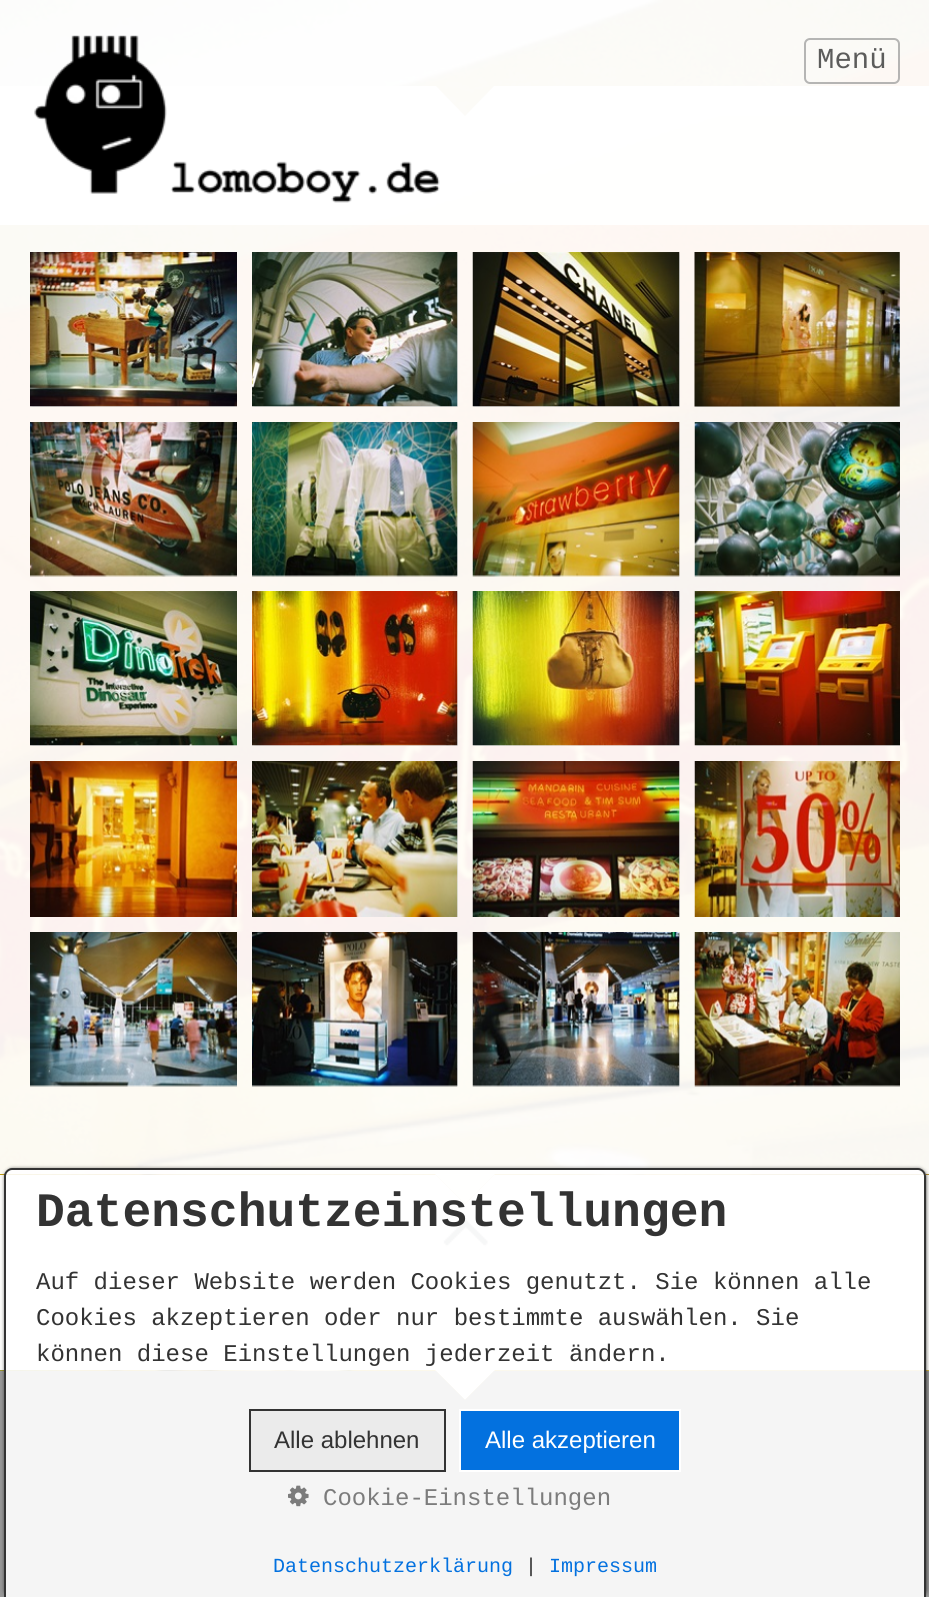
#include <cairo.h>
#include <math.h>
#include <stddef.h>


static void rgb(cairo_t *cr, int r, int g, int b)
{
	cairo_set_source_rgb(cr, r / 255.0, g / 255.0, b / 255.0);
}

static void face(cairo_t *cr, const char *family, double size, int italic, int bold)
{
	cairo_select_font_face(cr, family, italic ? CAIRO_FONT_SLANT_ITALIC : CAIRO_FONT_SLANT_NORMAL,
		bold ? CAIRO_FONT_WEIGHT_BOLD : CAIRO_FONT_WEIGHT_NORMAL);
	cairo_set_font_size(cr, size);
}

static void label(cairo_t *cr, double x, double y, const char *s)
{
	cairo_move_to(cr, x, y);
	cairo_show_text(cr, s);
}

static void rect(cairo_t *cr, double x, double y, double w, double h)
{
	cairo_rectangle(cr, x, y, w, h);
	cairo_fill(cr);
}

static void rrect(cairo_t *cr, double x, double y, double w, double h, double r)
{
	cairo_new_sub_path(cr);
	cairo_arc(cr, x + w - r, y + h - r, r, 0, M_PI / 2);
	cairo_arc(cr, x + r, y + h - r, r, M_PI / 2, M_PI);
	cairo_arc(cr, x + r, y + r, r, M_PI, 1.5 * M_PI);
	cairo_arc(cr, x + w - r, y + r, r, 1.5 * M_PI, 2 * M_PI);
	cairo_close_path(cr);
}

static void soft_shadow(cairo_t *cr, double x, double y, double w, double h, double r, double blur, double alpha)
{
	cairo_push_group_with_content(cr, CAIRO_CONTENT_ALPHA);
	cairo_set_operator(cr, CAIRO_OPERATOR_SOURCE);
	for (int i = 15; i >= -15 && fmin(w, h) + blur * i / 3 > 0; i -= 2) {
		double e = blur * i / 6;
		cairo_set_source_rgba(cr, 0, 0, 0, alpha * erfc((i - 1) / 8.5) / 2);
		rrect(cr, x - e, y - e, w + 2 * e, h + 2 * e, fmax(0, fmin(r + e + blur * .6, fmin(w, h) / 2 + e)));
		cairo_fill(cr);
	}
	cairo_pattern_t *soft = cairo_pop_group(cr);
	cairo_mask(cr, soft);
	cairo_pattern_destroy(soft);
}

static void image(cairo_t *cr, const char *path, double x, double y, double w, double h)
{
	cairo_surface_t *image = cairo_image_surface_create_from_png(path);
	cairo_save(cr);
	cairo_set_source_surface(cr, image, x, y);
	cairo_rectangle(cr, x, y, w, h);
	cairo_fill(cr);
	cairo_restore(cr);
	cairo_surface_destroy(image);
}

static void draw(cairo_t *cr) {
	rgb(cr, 255, 255, 255);
	cairo_paint(cr);
	image(cr, "image0.png", 0, 0, 929, 1400);
	rgb(cr, 247, 247, 247);
	cairo_new_path(cr);
	cairo_move_to(cr, 0, 86);
	cairo_line_to(cr, 0, 116);
	cairo_line_to(cr, 435, 116);
	cairo_line_to(cr, 465, 146);
	cairo_line_to(cr, 495, 116);
	cairo_line_to(cr, 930, 116);
	cairo_line_to(cr, 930, 86);
	cairo_line_to(cr, 494, 86);
	cairo_line_to(cr, 465, 116);
	cairo_line_to(cr, 436, 86);
	cairo_close_path(cr);
	cairo_fill(cr);
	cairo_set_source_rgba(cr, 1, 1, 1, 0.94);
	cairo_new_path(cr);
	cairo_move_to(cr, 0, 114);
	cairo_line_to(cr, 0, 1174);
	cairo_line_to(cr, 435, 1174);
	cairo_line_to(cr, 465, 1204);
	cairo_line_to(cr, 495, 1174);
	cairo_line_to(cr, 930, 1174);
	cairo_line_to(cr, 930, 114);
	cairo_line_to(cr, 495, 114);
	cairo_line_to(cr, 465, 144);
	cairo_line_to(cr, 435, 114);
	cairo_close_path(cr);
	cairo_fill(cr);
	cairo_set_source_rgba(cr, 1, 1, 1, 0.95);
	rect(cr, 0, 0, 929, 225);
	image(cr, "image1.png", 34, 35, 406, 168);
	rrect(cr, 805, 39, 94, 44, 5);
	cairo_set_source_rgba(cr, 0.592, 0.592, 0.592, 0.7);
	cairo_stroke(cr);
	face(cr, "Liberation Mono", 29, 0, 0);
	rgb(cr, 92, 92, 91);
	label(cr, 817, 68, "Menü");
	cairo_save(cr);
	cairo_rectangle(cr, 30, 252, 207, 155);
	cairo_clip(cr);
	rgb(cr, 231, 231, 231);
	soft_shadow(cr, 32, 254, 207, 154, 0, 1, 1);
	cairo_restore(cr);
	image(cr, "image2.png", 30, 252, 207, 155);
	cairo_save(cr);
	cairo_rectangle(cr, 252, 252, 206, 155);
	cairo_clip(cr);
	rgb(cr, 231, 231, 231);
	soft_shadow(cr, 254, 254, 205, 154, 0, 1, 1);
	cairo_restore(cr);
	image(cr, "image3.png", 252, 252, 206, 155);
	cairo_save(cr);
	cairo_rectangle(cr, 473, 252, 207, 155);
	cairo_clip(cr);
	rgb(cr, 231, 231, 231);
	soft_shadow(cr, 474, 254, 207, 154, 0, 1, 1);
	cairo_restore(cr);
	image(cr, "image4.png", 472, 252, 208, 155);
	cairo_save(cr);
	cairo_rectangle(cr, 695, 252, 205, 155);
	cairo_clip(cr);
	rgb(cr, 231, 231, 231);
	soft_shadow(cr, 696, 254, 206, 154, 0, 1, 1);
	cairo_restore(cr);
	image(cr, "image5.png", 694, 252, 206, 155);
	image(cr, "image6.png", 30, 422, 207, 155);
	cairo_save(cr);
	cairo_rectangle(cr, 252, 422, 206, 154);
	cairo_clip(cr);
	rgb(cr, 231, 231, 231);
	soft_shadow(cr, 254, 423, 205, 155, 0, 1, 1);
	cairo_restore(cr);
	image(cr, "image7.png", 252, 422, 206, 155);
	cairo_save(cr);
	cairo_rectangle(cr, 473, 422, 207, 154);
	cairo_clip(cr);
	rgb(cr, 231, 231, 231);
	soft_shadow(cr, 474, 423, 207, 155, 0, 1, 1);
	cairo_restore(cr);
	image(cr, "image8.png", 472, 422, 208, 155);
	image(cr, "image9.png", 694, 422, 206, 155);
	cairo_save(cr);
	cairo_rectangle(cr, 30, 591, 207, 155);
	cairo_clip(cr);
	rgb(cr, 231, 231, 231);
	soft_shadow(cr, 32, 593, 207, 154, 0, 1, 1);
	cairo_restore(cr);
	image(cr, "image10.png", 30, 591, 207, 155);
	cairo_save(cr);
	cairo_rectangle(cr, 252, 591, 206, 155);
	cairo_clip(cr);
	rgb(cr, 231, 231, 231);
	soft_shadow(cr, 254, 593, 205, 154, 0, 1, 1);
	cairo_restore(cr);
	image(cr, "image11.png", 252, 591, 206, 155);
	cairo_save(cr);
	cairo_rectangle(cr, 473, 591, 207, 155);
	cairo_clip(cr);
	rgb(cr, 231, 231, 231);
	soft_shadow(cr, 474, 593, 207, 154, 0, 1, 1);
	cairo_restore(cr);
	image(cr, "image12.png", 472, 591, 208, 155);
	cairo_save(cr);
	cairo_rectangle(cr, 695, 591, 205, 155);
	cairo_clip(cr);
	rgb(cr, 231, 231, 231);
	soft_shadow(cr, 696, 593, 206, 154, 0, 1, 1);
	cairo_restore(cr);
	image(cr, "image13.png", 694, 591, 206, 155);
	image(cr, "image14.png", 30, 761, 207, 156);
	cairo_save(cr);
	cairo_rectangle(cr, 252, 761, 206, 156);
	cairo_clip(cr);
	rgb(cr, 231, 231, 231);
	soft_shadow(cr, 254, 762, 205, 156, 0, 1, 1);
	cairo_restore(cr);
	image(cr, "image15.png", 252, 761, 206, 156);
	cairo_save(cr);
	cairo_rectangle(cr, 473, 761, 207, 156);
	cairo_clip(cr);
	rgb(cr, 231, 231, 231);
	soft_shadow(cr, 474, 762, 207, 156, 0, 1, 1);
	cairo_restore(cr);
	image(cr, "image16.png", 472, 761, 208, 156);
	image(cr, "image17.png", 694, 761, 206, 156);
	image(cr, "image18.png", 30, 932, 207, 155);
	cairo_save(cr);
	cairo_rectangle(cr, 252, 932, 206, 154);
	cairo_clip(cr);
	rgb(cr, 231, 231, 231);
	soft_shadow(cr, 254, 933, 205, 155, 0, 1, 1);
	cairo_restore(cr);
	image(cr, "image19.png", 252, 932, 206, 155);
	cairo_save(cr);
	cairo_rectangle(cr, 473, 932, 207, 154);
	cairo_clip(cr);
	rgb(cr, 231, 231, 231);
	soft_shadow(cr, 474, 933, 207, 155, 0, 1, 1);
	cairo_restore(cr);
	image(cr, "image20.png", 472, 932, 208, 155);
	image(cr, "image21.png", 694, 932, 206, 155);
	cairo_set_source_rgba(cr, 1, 1, 1, 0.98);
	cairo_new_path(cr);
	cairo_move_to(cr, 0, 1175);
	cairo_line_to(cr, 0, 1370);
	cairo_line_to(cr, 435, 1370);
	cairo_line_to(cr, 465, 1400);
	cairo_line_to(cr, 495, 1370);
	cairo_line_to(cr, 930, 1370);
	cairo_line_to(cr, 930, 1175);
	cairo_line_to(cr, 494, 1175);
	cairo_line_to(cr, 465, 1204);
	cairo_line_to(cr, 436, 1175);
	cairo_close_path(cr);
	cairo_fill(cr);
	image(cr, "image22.png", 443, 1219, 45, 28);
	rgb(cr, 151, 151, 151);
	cairo_new_path(cr);
	cairo_move_to(cr, 0, 1371);
	cairo_line_to(cr, 0, 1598);
	cairo_line_to(cr, 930, 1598);
	cairo_line_to(cr, 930, 1371);
	cairo_line_to(cr, 494, 1371);
	cairo_line_to(cr, 465, 1400);
	cairo_line_to(cr, 436, 1371);
	cairo_close_path(cr);
	cairo_fill(cr);
	cairo_save(cr);
	cairo_set_fill_rule(cr, CAIRO_FILL_RULE_EVEN_ODD);
	cairo_new_path(cr);
	cairo_move_to(cr, 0, 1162);
	cairo_line_to(cr, 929, 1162);
	cairo_line_to(cr, 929, 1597);
	cairo_line_to(cr, 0, 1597);
	cairo_close_path(cr);
	cairo_move_to(cr, 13, 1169);
	cairo_line_to(cr, 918, 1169);
	cairo_curve_to(cr, 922.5, 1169, 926, 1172.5, 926, 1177);
	cairo_line_to(cr, 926, 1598);
	cairo_line_to(cr, 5, 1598);
	cairo_line_to(cr, 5, 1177);
	cairo_curve_to(cr, 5, 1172.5, 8.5, 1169, 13, 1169);
	cairo_close_path(cr);
	cairo_clip(cr);
	rgb(cr, 0, 0, 0);
	soft_shadow(cr, 5, 1169, 921, 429, 8, 2, 0.8);
	cairo_restore(cr);
	cairo_set_source_rgba(cr, 1, 1, 1, 0.9);
	cairo_new_path(cr);
	cairo_move_to(cr, 13, 1169);
	cairo_line_to(cr, 918, 1169);
	cairo_curve_to(cr, 922.5, 1169, 926, 1172.5, 926, 1177);
	cairo_line_to(cr, 926, 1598);
	cairo_line_to(cr, 5, 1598);
	cairo_line_to(cr, 5, 1177);
	cairo_curve_to(cr, 5, 1172.5, 8.5, 1169, 13, 1169);
	cairo_close_path(cr);
	cairo_fill(cr);
	rgb(cr, 51, 51, 51);
	cairo_set_fill_rule(cr, CAIRO_FILL_RULE_EVEN_ODD);
	cairo_new_path(cr);
	cairo_move_to(cr, 12, 1168);
	cairo_line_to(cr, 918, 1168);
	cairo_curve_to(cr, 922, 1168, 926, 1172, 926, 1176);
	cairo_line_to(cr, 926, 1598);
	cairo_line_to(cr, 4, 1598);
	cairo_line_to(cr, 4, 1176);
	cairo_curve_to(cr, 4, 1172, 8, 1168, 12, 1168);
	cairo_close_path(cr);
	cairo_move_to(cr, 12, 1170);
	cairo_line_to(cr, 918, 1170);
	cairo_curve_to(cr, 921, 1170, 924, 1173, 924, 1176);
	cairo_line_to(cr, 924, 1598);
	cairo_line_to(cr, 6, 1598);
	cairo_line_to(cr, 6, 1176);
	cairo_curve_to(cr, 6, 1173, 9, 1170, 12, 1170);
	cairo_close_path(cr);
	cairo_fill(cr);
	face(cr, "Liberation Mono", 48, 0, 1);
	label(cr, 36, 1226, "Datenschutzeinstellungen");
	face(cr, "Liberation Mono", 24, 0, 0);
	label(cr, 36, 1289, "Auf dieser Website werden Cookies genutzt. Sie können alle");
	label(cr, 36, 1325, "Cookies akzeptieren oder nur bestimmte auswählen. Sie");
	label(cr, 36, 1361, "können diese Einstellungen jederzeit ändern.");
	rgb(cr, 235, 235, 235);
	cairo_rectangle(cr, 250, 1410, 195, 61);
	cairo_fill_preserve(cr);
	rgb(cr, 51, 51, 51);
	cairo_stroke(cr);
	face(cr, "Liberation Sans", 24, 0, 0);
	label(cr, 274, 1448, "Alle ablehnen");
	rgb(cr, 3, 113, 223);
	cairo_rectangle(cr, 460, 1410, 220, 61);
	cairo_fill_preserve(cr);
	rgb(cr, 255, 255, 255);
	cairo_stroke(cr);
	label(cr, 485, 1448, "Alle akzeptieren");
	image(cr, "image23.png", 288, 1485, 21, 22);
	face(cr, "Liberation Mono", 24, 0, 0);
	rgb(cr, 124, 124, 124);
	label(cr, 323, 1505, "Cookie-Einstellungen");
	face(cr, "Liberation Mono", 20, 0, 0);
	rgb(cr, 3, 113, 223);
	label(cr, 273, 1572, "Datenschutzerklärung");
	rgb(cr, 51, 51, 51);
	label(cr, 525, 1572, "|");
	rgb(cr, 3, 113, 223);
	label(cr, 549, 1572, "Impressum");
}

int main(void) {
	cairo_surface_t *surface = cairo_image_surface_create(CAIRO_FORMAT_RGB24, 929, 1597);
	cairo_t *cr = cairo_create(surface);
	cairo_font_options_t *options = cairo_font_options_create();
	cairo_font_options_set_hint_metrics(options, CAIRO_HINT_METRICS_OFF);
	cairo_font_options_set_hint_style(options, CAIRO_HINT_STYLE_NONE);
	cairo_set_font_options(cr, options);
	cairo_set_miter_limit(cr, 4);
	draw(cr);
	cairo_surface_write_to_png(surface, "render.png");
	cairo_font_options_destroy(options);
	cairo_destroy(cr);
	cairo_surface_destroy(surface);
	return 0;
}
